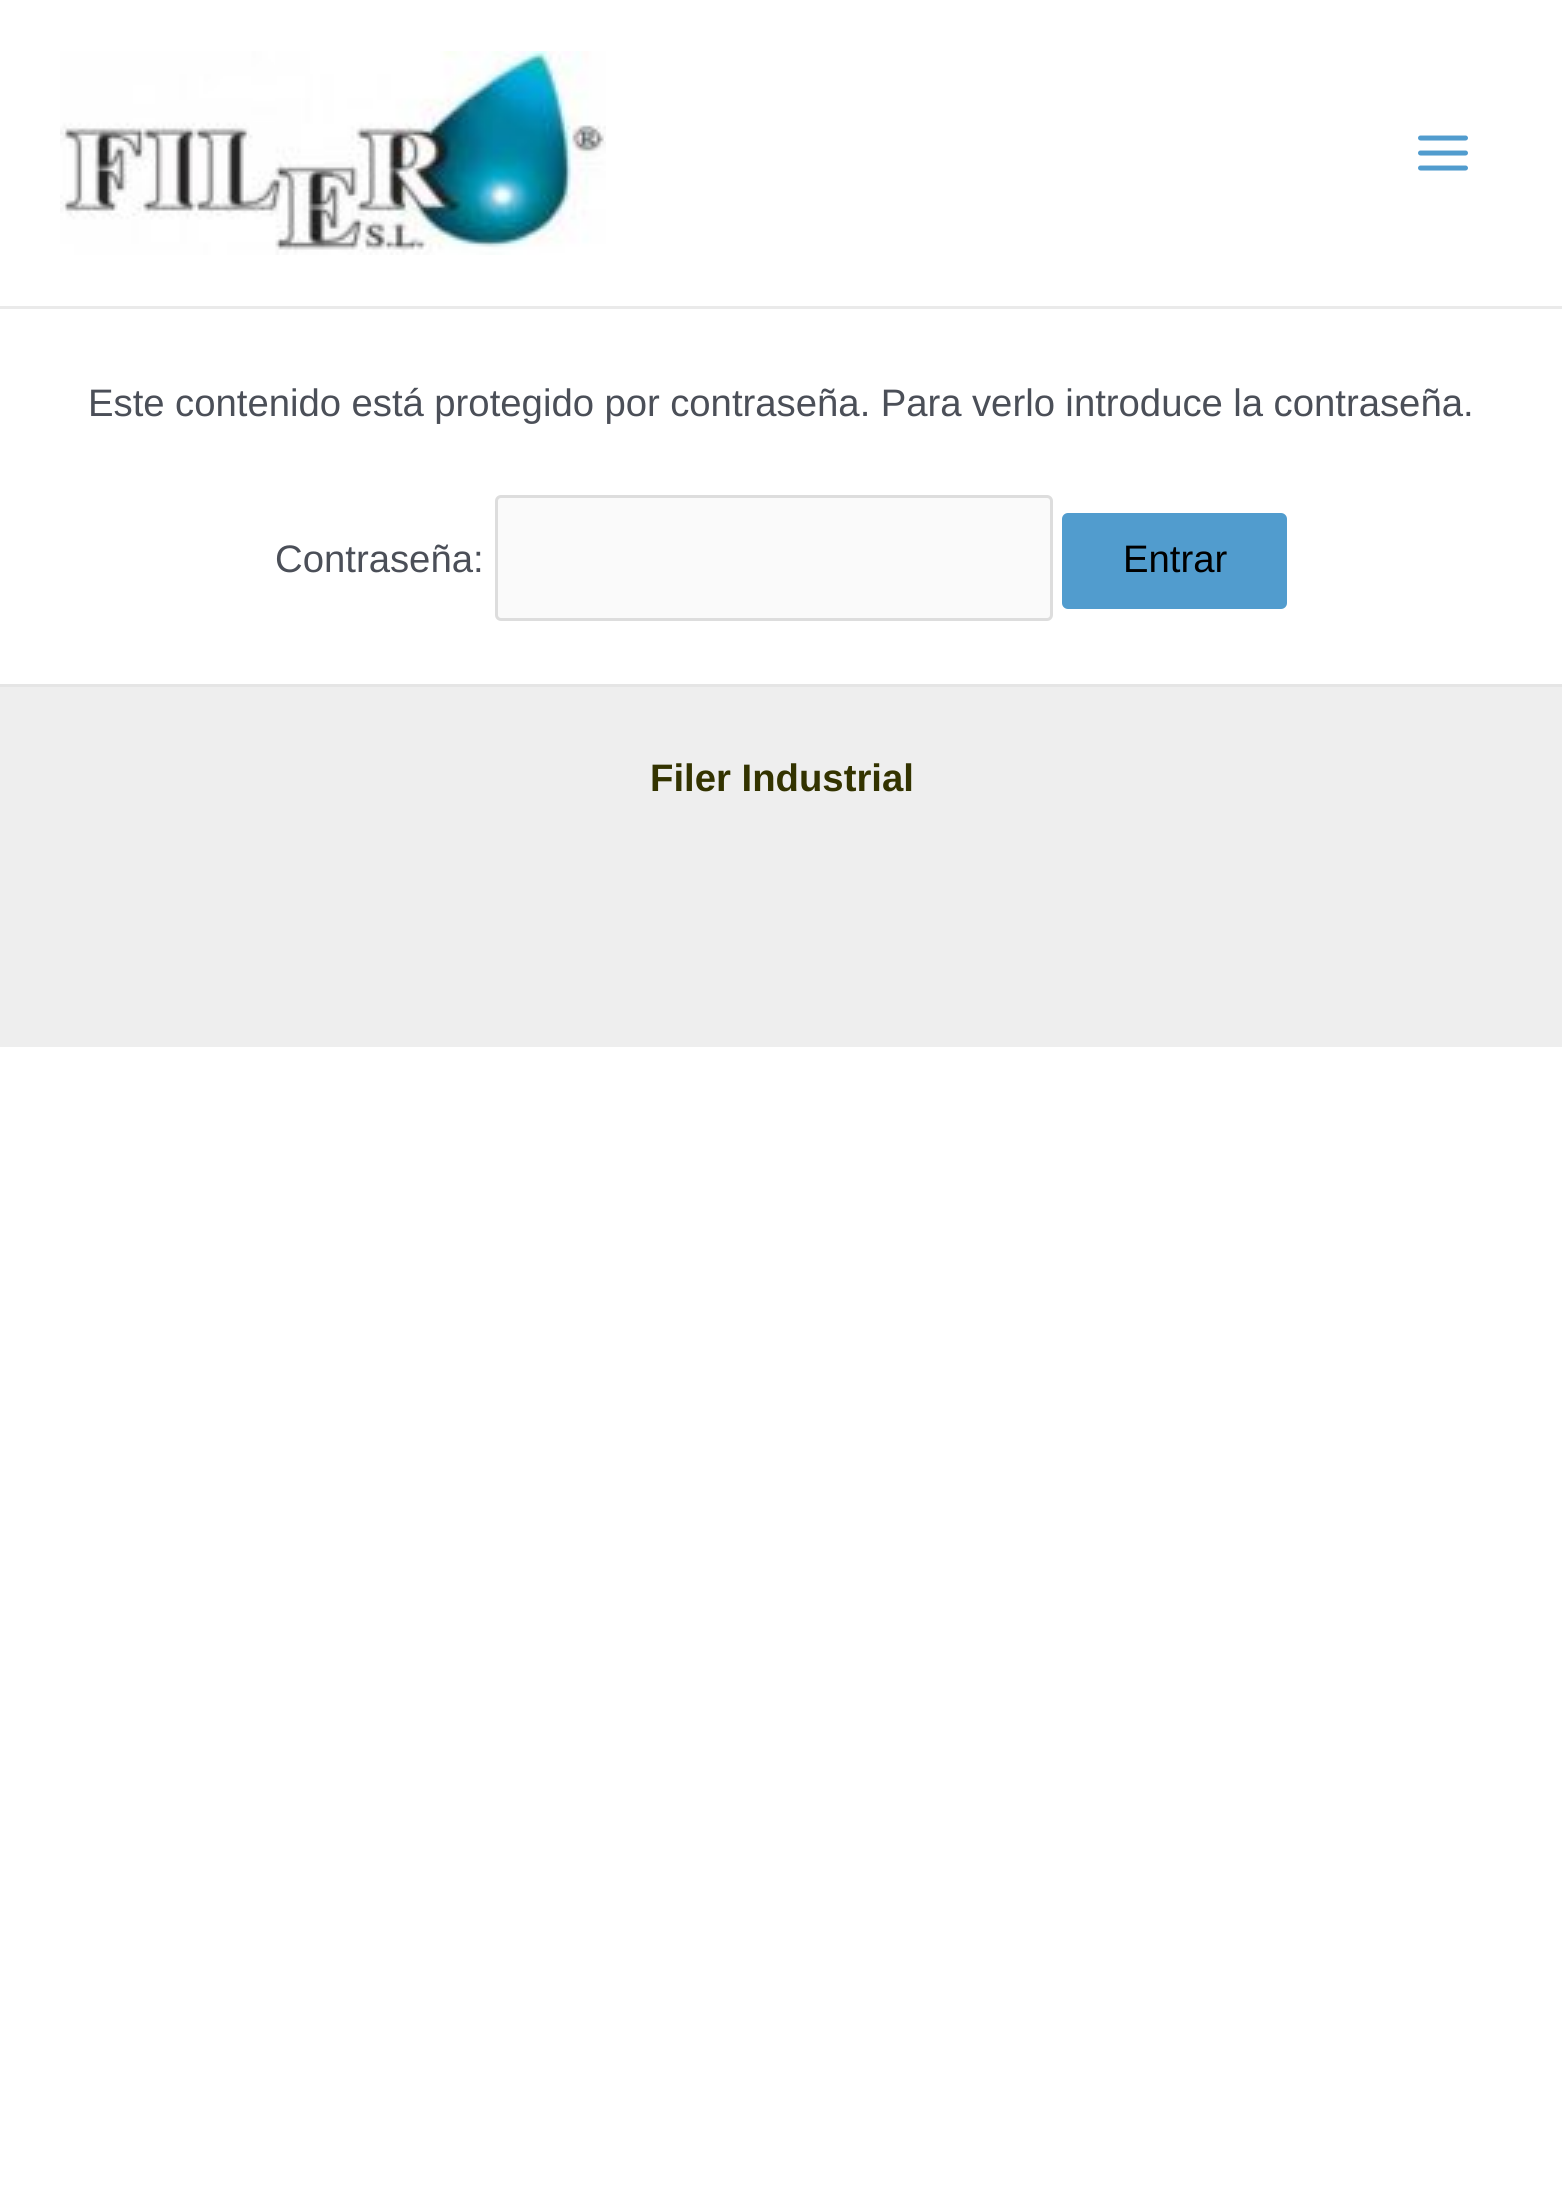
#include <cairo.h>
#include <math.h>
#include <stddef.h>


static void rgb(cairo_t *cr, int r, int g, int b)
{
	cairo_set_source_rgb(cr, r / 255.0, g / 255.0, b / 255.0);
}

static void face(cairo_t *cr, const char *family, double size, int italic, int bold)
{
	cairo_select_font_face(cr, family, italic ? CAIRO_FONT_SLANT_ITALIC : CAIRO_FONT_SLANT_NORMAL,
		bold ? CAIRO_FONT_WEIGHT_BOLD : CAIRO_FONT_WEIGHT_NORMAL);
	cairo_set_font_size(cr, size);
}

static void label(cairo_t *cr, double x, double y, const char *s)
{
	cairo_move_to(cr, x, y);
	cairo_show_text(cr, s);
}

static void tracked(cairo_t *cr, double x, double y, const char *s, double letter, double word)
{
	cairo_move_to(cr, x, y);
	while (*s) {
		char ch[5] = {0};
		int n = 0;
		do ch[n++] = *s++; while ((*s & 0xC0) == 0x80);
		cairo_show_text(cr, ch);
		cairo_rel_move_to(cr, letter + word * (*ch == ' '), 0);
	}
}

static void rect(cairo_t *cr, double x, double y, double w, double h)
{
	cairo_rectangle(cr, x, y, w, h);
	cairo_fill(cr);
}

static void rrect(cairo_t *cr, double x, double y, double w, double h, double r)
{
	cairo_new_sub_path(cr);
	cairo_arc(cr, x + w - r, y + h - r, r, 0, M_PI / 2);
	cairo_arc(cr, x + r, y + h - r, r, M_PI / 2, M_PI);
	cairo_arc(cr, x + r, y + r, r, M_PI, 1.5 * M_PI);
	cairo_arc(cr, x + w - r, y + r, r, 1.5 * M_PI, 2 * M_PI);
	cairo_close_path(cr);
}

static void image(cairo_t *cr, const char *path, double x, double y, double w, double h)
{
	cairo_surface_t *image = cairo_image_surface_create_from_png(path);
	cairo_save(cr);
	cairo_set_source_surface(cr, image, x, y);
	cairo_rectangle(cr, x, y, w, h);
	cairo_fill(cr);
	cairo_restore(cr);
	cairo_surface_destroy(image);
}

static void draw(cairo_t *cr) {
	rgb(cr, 255, 255, 255);
	cairo_paint(cr);
	rgb(cr, 234, 234, 234);
	rect(cr, 0, 306, 1562, 3);
	image(cr, "image0.png", 60, 51, 546, 204);
	image(cr, "image1.png", 1418, 135, 50, 36);
	face(cr, "Liberation Sans", 38.3, 0, 0);
	rgb(cr, 75, 79, 88);
	tracked(cr, 88, 416, "Este contenido está protegido por contraseña. Para verlo introduce la contraseña.", 0, -0.25);
	label(cr, 275, 572, "Contraseña:");
	rgb(cr, 250, 250, 250);
	rrect(cr, 496.5, 496.5, 555, 123, 4.5);
	cairo_fill_preserve(cr);
	rgb(cr, 221, 221, 221);
	cairo_set_line_width(cr, 3);
	cairo_stroke(cr);
	rgb(cr, 81, 156, 206);
	rrect(cr, 1062, 513, 225, 96, 6);
	cairo_fill(cr);
	rgb(cr, 0, 0, 0);
	label(cr, 1123, 572, "Entrar");
	rgb(cr, 238, 238, 238);
	rect(cr, 0, 687, 1562, 360);
	rgb(cr, 229, 229, 229);
	rect(cr, 0, 684, 1562, 3);
	face(cr, "Liberation Sans", 38.3, 0, 1);
	rgb(cr, 51, 51, 0);
	label(cr, 650, 791, "Filer Industrial");
}

int main(void) {
	cairo_surface_t *surface = cairo_image_surface_create(CAIRO_FORMAT_RGB24, 1562, 2201);
	cairo_t *cr = cairo_create(surface);
	cairo_font_options_t *options = cairo_font_options_create();
	cairo_font_options_set_hint_metrics(options, CAIRO_HINT_METRICS_OFF);
	cairo_font_options_set_hint_style(options, CAIRO_HINT_STYLE_NONE);
	cairo_set_font_options(cr, options);
	cairo_set_miter_limit(cr, 4);
	draw(cr);
	cairo_surface_write_to_png(surface, "render.png");
	cairo_font_options_destroy(options);
	cairo_destroy(cr);
	cairo_surface_destroy(surface);
	return 0;
}
